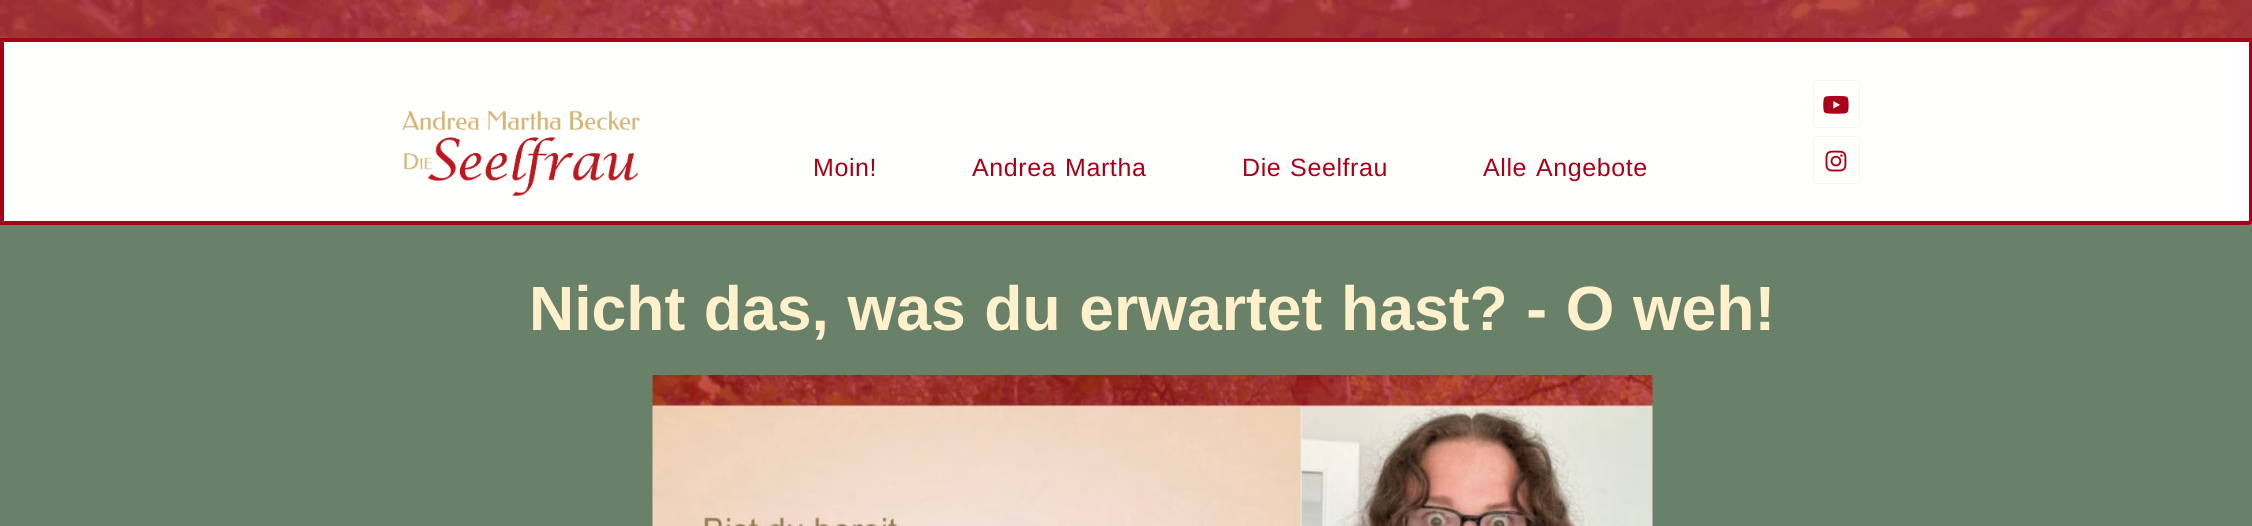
#include <cairo.h>
#include <math.h>
#include <stddef.h>


static void rgb(cairo_t *cr, int r, int g, int b)
{
	cairo_set_source_rgb(cr, r / 255.0, g / 255.0, b / 255.0);
}

static void face(cairo_t *cr, const char *family, double size, int italic, int bold)
{
	cairo_select_font_face(cr, family, italic ? CAIRO_FONT_SLANT_ITALIC : CAIRO_FONT_SLANT_NORMAL,
		bold ? CAIRO_FONT_WEIGHT_BOLD : CAIRO_FONT_WEIGHT_NORMAL);
	cairo_set_font_size(cr, size);
}

static void tracked(cairo_t *cr, double x, double y, const char *s, double letter, double word)
{
	cairo_move_to(cr, x, y);
	while (*s) {
		char ch[5] = {0};
		int n = 0;
		do ch[n++] = *s++; while ((*s & 0xC0) == 0x80);
		cairo_show_text(cr, ch);
		cairo_rel_move_to(cr, letter + word * (*ch == ' '), 0);
	}
}

static void rect(cairo_t *cr, double x, double y, double w, double h)
{
	cairo_rectangle(cr, x, y, w, h);
	cairo_fill(cr);
}

static void rrect(cairo_t *cr, double x, double y, double w, double h, double r)
{
	cairo_new_sub_path(cr);
	cairo_arc(cr, x + w - r, y + h - r, r, 0, M_PI / 2);
	cairo_arc(cr, x + r, y + h - r, r, M_PI / 2, M_PI);
	cairo_arc(cr, x + r, y + r, r, M_PI, 1.5 * M_PI);
	cairo_arc(cr, x + w - r, y + r, r, 1.5 * M_PI, 2 * M_PI);
	cairo_close_path(cr);
}

static void image(cairo_t *cr, const char *path, double x, double y, double w, double h)
{
	cairo_surface_t *image = cairo_image_surface_create_from_png(path);
	cairo_save(cr);
	cairo_set_source_surface(cr, image, x, y);
	cairo_rectangle(cr, x, y, w, h);
	cairo_fill(cr);
	cairo_restore(cr);
	cairo_surface_destroy(image);
}

static void draw(cairo_t *cr) {
	rgb(cr, 255, 255, 255);
	cairo_paint(cr);
	image(cr, "image0.png", 0, 0, 2252, 225);
	cairo_set_source_rgba(cr, 0.694, 0.055, 0.149, 0.7);
	rect(cr, 0, 0, 2252, 38);
	rgb(cr, 255, 255, 254);
	cairo_new_path(cr);
	cairo_move_to(cr, 2, 40);
	cairo_line_to(cr, 2251, 40);
	cairo_line_to(cr, 2251, 220);
	cairo_curve_to(cr, 2251, 221.5, 2249.5, 223, 2248, 223);
	cairo_line_to(cr, 2, 223);
	cairo_close_path(cr);
	cairo_fill_preserve(cr);
	rgb(cr, 169, 0, 25);
	cairo_set_line_width(cr, 4);
	cairo_stroke(cr);
	image(cr, "image1.png", 402, 111, 238, 86);
	face(cr, "Liberation Sans", 25, 0, 0);
	tracked(cr, 813, 176, "Moin!", 0.6, 0);
	tracked(cr, 972, 176, "Andrea Martha", 0.6, 1.25);
	tracked(cr, 1242, 176, "Die Seelfrau", 0.6, 1.25);
	tracked(cr, 1483, 176, "Alle Angebote", 0.6, 1.25);
	rrect(cr, 1813.5, 80.5, 46, 47, 4.5);
	rgb(cr, 244, 244, 244);
	cairo_set_line_width(cr, 1);
	cairo_stroke(cr);
	image(cr, "image2.png", 1823, 95, 26, 19);
	rrect(cr, 1813.5, 136.5, 46, 47, 4.5);
	cairo_stroke(cr);
	image(cr, "image3.png", 1825, 150, 22, 22);
	rgb(cr, 105, 129, 104);
	rect(cr, 0, 225, 2252, 301);
	face(cr, "Liberation Sans", 62.5, 0, 1);
	rgb(cr, 255, 241, 204);
	tracked(cr, 529, 330, "Nicht das, was du erwartet hast? - O weh!", 0, 1.25);
	image(cr, "image4.png", 652, 375, 1001, 151);
}

int main(void) {
	cairo_surface_t *surface = cairo_image_surface_create(CAIRO_FORMAT_RGB24, 2252, 526);
	cairo_t *cr = cairo_create(surface);
	cairo_font_options_t *options = cairo_font_options_create();
	cairo_font_options_set_hint_metrics(options, CAIRO_HINT_METRICS_OFF);
	cairo_font_options_set_hint_style(options, CAIRO_HINT_STYLE_NONE);
	cairo_set_font_options(cr, options);
	cairo_set_miter_limit(cr, 4);
	draw(cr);
	cairo_surface_write_to_png(surface, "render.png");
	cairo_font_options_destroy(options);
	cairo_destroy(cr);
	cairo_surface_destroy(surface);
	return 0;
}
